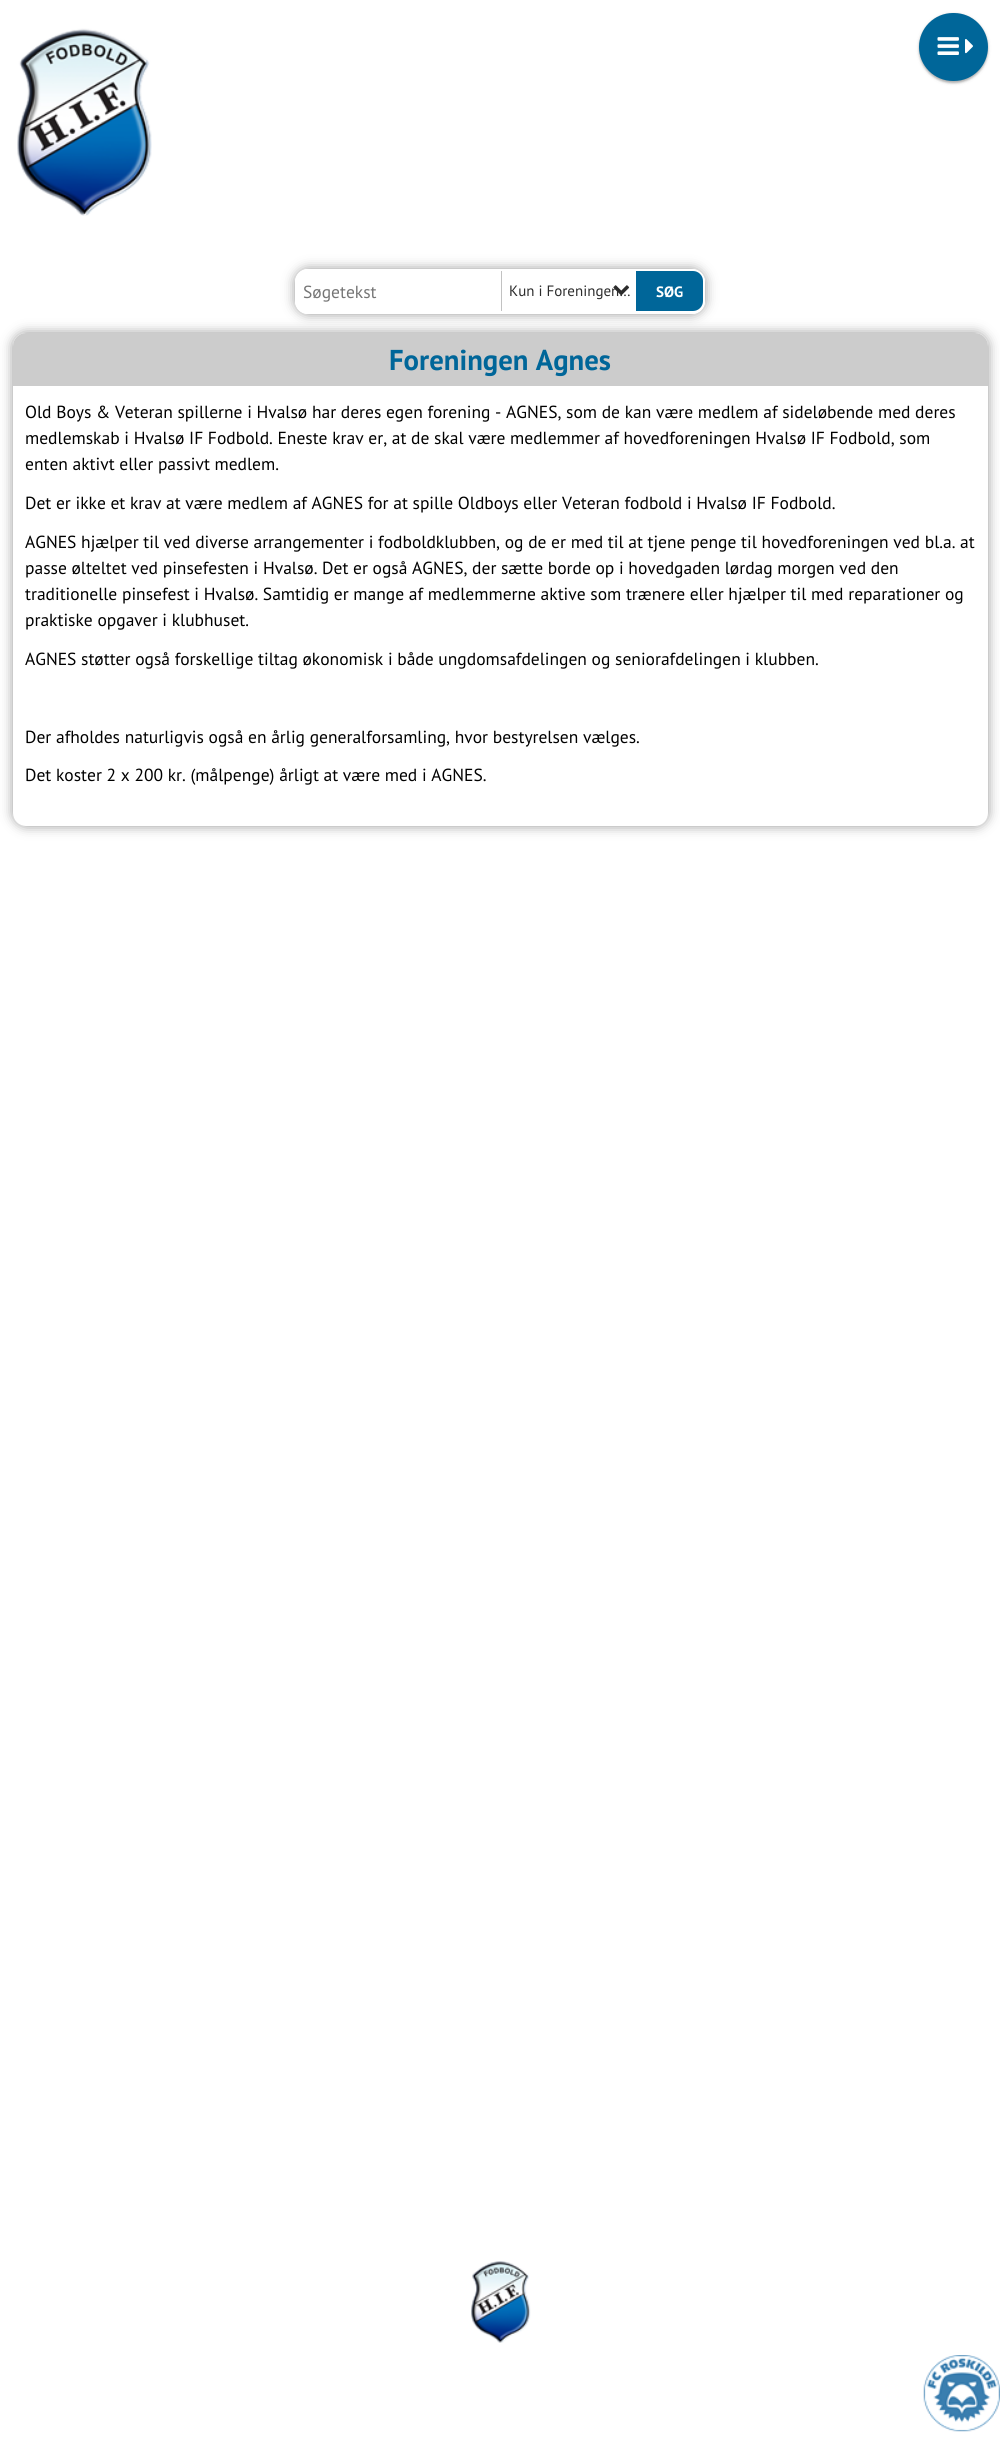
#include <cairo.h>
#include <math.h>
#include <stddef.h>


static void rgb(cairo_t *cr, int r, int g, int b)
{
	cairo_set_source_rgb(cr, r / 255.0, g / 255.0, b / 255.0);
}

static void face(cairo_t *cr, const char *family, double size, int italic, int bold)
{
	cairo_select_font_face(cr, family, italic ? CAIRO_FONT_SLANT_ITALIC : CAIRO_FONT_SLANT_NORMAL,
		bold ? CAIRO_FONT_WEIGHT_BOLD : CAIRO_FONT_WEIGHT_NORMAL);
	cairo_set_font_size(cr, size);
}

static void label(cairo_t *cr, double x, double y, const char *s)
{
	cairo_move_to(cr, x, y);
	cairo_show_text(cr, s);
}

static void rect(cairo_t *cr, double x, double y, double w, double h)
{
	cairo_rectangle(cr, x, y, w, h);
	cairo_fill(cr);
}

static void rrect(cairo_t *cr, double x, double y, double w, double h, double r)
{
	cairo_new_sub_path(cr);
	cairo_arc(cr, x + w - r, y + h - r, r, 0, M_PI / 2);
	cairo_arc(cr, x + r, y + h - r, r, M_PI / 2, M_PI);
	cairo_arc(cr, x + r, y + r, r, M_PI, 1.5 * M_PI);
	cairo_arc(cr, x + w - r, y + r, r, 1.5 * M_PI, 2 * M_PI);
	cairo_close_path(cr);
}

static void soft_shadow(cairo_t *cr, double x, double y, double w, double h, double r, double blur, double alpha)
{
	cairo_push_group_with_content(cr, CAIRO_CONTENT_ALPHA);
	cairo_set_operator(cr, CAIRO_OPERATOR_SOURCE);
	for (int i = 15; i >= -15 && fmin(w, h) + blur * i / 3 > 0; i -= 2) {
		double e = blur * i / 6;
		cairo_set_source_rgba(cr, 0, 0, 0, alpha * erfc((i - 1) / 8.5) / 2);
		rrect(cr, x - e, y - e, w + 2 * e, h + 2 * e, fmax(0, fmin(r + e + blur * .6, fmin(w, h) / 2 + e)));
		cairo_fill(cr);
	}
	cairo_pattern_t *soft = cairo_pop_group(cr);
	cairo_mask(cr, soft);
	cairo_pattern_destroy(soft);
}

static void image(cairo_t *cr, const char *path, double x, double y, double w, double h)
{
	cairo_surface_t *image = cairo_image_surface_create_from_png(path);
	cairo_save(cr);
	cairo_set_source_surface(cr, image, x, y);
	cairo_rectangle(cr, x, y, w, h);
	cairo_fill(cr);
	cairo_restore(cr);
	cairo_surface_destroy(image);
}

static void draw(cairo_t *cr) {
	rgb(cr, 255, 255, 255);
	cairo_paint(cr);
	image(cr, "image0.png", 17, 28, 135, 188);
	rgb(cr, 0, 0, 0);
	soft_shadow(cr, 919, 14, 69, 69, 34.5, 1, 0.24);
	soft_shadow(cr, 919, 14, 69, 69, 34.5, 2, 0.12);
	rgb(cr, 0, 102, 153);
	rrect(cr, 919, 13, 69, 68, 34);
	cairo_fill(cr);
	image(cr, "image1.png", 937, 37, 22, 18);
	image(cr, "image2.png", 965, 39, 8, 15);
	cairo_save(cr);
	cairo_set_fill_rule(cr, CAIRO_FILL_RULE_EVEN_ODD);
	cairo_new_path(cr);
	cairo_move_to(cr, 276, 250);
	cairo_line_to(cr, 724, 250);
	cairo_line_to(cr, 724, 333);
	cairo_line_to(cr, 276, 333);
	cairo_close_path(cr);
	cairo_move_to(cr, 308, 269);
	cairo_line_to(cr, 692, 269);
	cairo_curve_to(cr, 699, 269, 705, 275, 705, 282);
	cairo_line_to(cr, 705, 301);
	cairo_curve_to(cr, 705, 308, 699, 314, 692, 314);
	cairo_line_to(cr, 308, 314);
	cairo_curve_to(cr, 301, 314, 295, 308, 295, 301);
	cairo_line_to(cr, 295, 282);
	cairo_curve_to(cr, 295, 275, 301, 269, 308, 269);
	cairo_close_path(cr);
	cairo_clip(cr);
	rgb(cr, 48, 48, 48);
	soft_shadow(cr, 295, 269, 410, 45, 13, 6, 0.5);
	cairo_restore(cr);
	rrect(cr, 296.5, 270.5, 407, 42, 11.5);
	rgb(cr, 255, 255, 255);
	cairo_set_line_width(cr, 3);
	cairo_stroke(cr);
	face(cr, "PT Sans", 17.5, 0, 0);
	rgb(cr, 117, 117, 117);
	label(cr, 303, 298, "Søgetekst");
	rgb(cr, 194, 194, 194);
	rect(cr, 501, 271, 1, 40);
	face(cr, "PT Sans", 15, 0, 0);
	rgb(cr, 44, 44, 44);
	label(cr, 509, 296, "Kun i Foreningen…");
	image(cr, "image3.png", 613, 285, 17, 11);
	rgb(cr, 0, 102, 153);
	cairo_new_path(cr);
	cairo_move_to(cr, 636, 271);
	cairo_line_to(cr, 693, 271);
	cairo_curve_to(cr, 698.5, 271, 703, 275.5, 703, 281);
	cairo_line_to(cr, 703, 301);
	cairo_curve_to(cr, 703, 306.5, 698.5, 311, 693, 311);
	cairo_line_to(cr, 636, 311);
	cairo_close_path(cr);
	cairo_fill(cr);
	face(cr, "PT Sans", 15, 0, 1);
	rgb(cr, 255, 255, 255);
	label(cr, 656, 297, "SØG");
	rgb(cr, 48, 48, 48);
	soft_shadow(cr, 13, 333, 975, 493, 13, 6, 0.5);
	rgb(cr, 255, 255, 255);
	rrect(cr, 13, 333, 975, 493, 13);
	cairo_fill(cr);
	rgb(cr, 204, 204, 204);
	cairo_new_path(cr);
	cairo_move_to(cr, 26, 333);
	cairo_line_to(cr, 975, 333);
	cairo_curve_to(cr, 982, 333, 988, 339, 988, 346);
	cairo_line_to(cr, 988, 386);
	cairo_line_to(cr, 13, 386);
	cairo_line_to(cr, 13, 346);
	cairo_curve_to(cr, 13, 339, 19, 333, 26, 333);
	cairo_close_path(cr);
	cairo_fill(cr);
	face(cr, "PT Sans", 28.75, 0, 1);
	rgb(cr, 0, 102, 153);
	label(cr, 389, 370, "Foreningen Agnes");
	face(cr, "PT Sans", 17.5, 0, 0);
	rgb(cr, 0, 0, 0);
	label(cr, 25, 418, "Old Boys & Veteran spillerne i Hvalsø har deres egen forening - AGNES, som de kan være medlem af sideløbende med deres");
	label(cr, 25, 444, "medlemskab i Hvalsø IF Fodbold. Eneste krav er, at de skal være medlemmer af hovedforeningen Hvalsø IF Fodbold, som");
	label(cr, 25, 470, "enten aktivt eller passivt medlem.");
	label(cr, 25, 509, "Det er ikke et krav at være medlem af AGNES for at spille Oldboys eller Veteran fodbold i Hvalsø IF Fodbold.");
	label(cr, 25, 548, "AGNES hjælper til ved diverse arrangementer i fodboldklubben, og de er med til at tjene penge til hovedforeningen ved bl.a. at");
	label(cr, 25, 574, "passe ølteltet ved pinsefesten i Hvalsø. Det er også AGNES, der sætte borde op i hovedgaden lørdag morgen ved den");
	label(cr, 25, 600, "traditionelle pinsefest i Hvalsø. Samtidig er mange af medlemmerne aktive som trænere eller hjælper til med reparationer og");
	label(cr, 25, 626, "praktiske opgaver i klubhuset.");
	label(cr, 25, 665, "AGNES støtter også forskellige tiltag økonomisk i både ungdomsafdelingen og seniorafdelingen i klubben.");
	label(cr, 25, 743, "Der afholdes naturligvis også en årlig generalforsamling, hvor bestyrelsen vælges.");
	label(cr, 25, 781, "Det koster 2 x 200 kr. (målpenge) årligt at være med i AGNES.");
	image(cr, "image4.png", 471, 2261, 60, 82);
	image(cr, "image5.png", 923, 2355, 77, 77);
}

int main(void) {
	cairo_surface_t *surface = cairo_image_surface_create(CAIRO_FORMAT_RGB24, 1000, 2464);
	cairo_t *cr = cairo_create(surface);
	cairo_font_options_t *options = cairo_font_options_create();
	cairo_font_options_set_hint_metrics(options, CAIRO_HINT_METRICS_OFF);
	cairo_font_options_set_hint_style(options, CAIRO_HINT_STYLE_NONE);
	cairo_set_font_options(cr, options);
	cairo_set_miter_limit(cr, 4);
	draw(cr);
	cairo_surface_write_to_png(surface, "render.png");
	cairo_font_options_destroy(options);
	cairo_destroy(cr);
	cairo_surface_destroy(surface);
	return 0;
}
